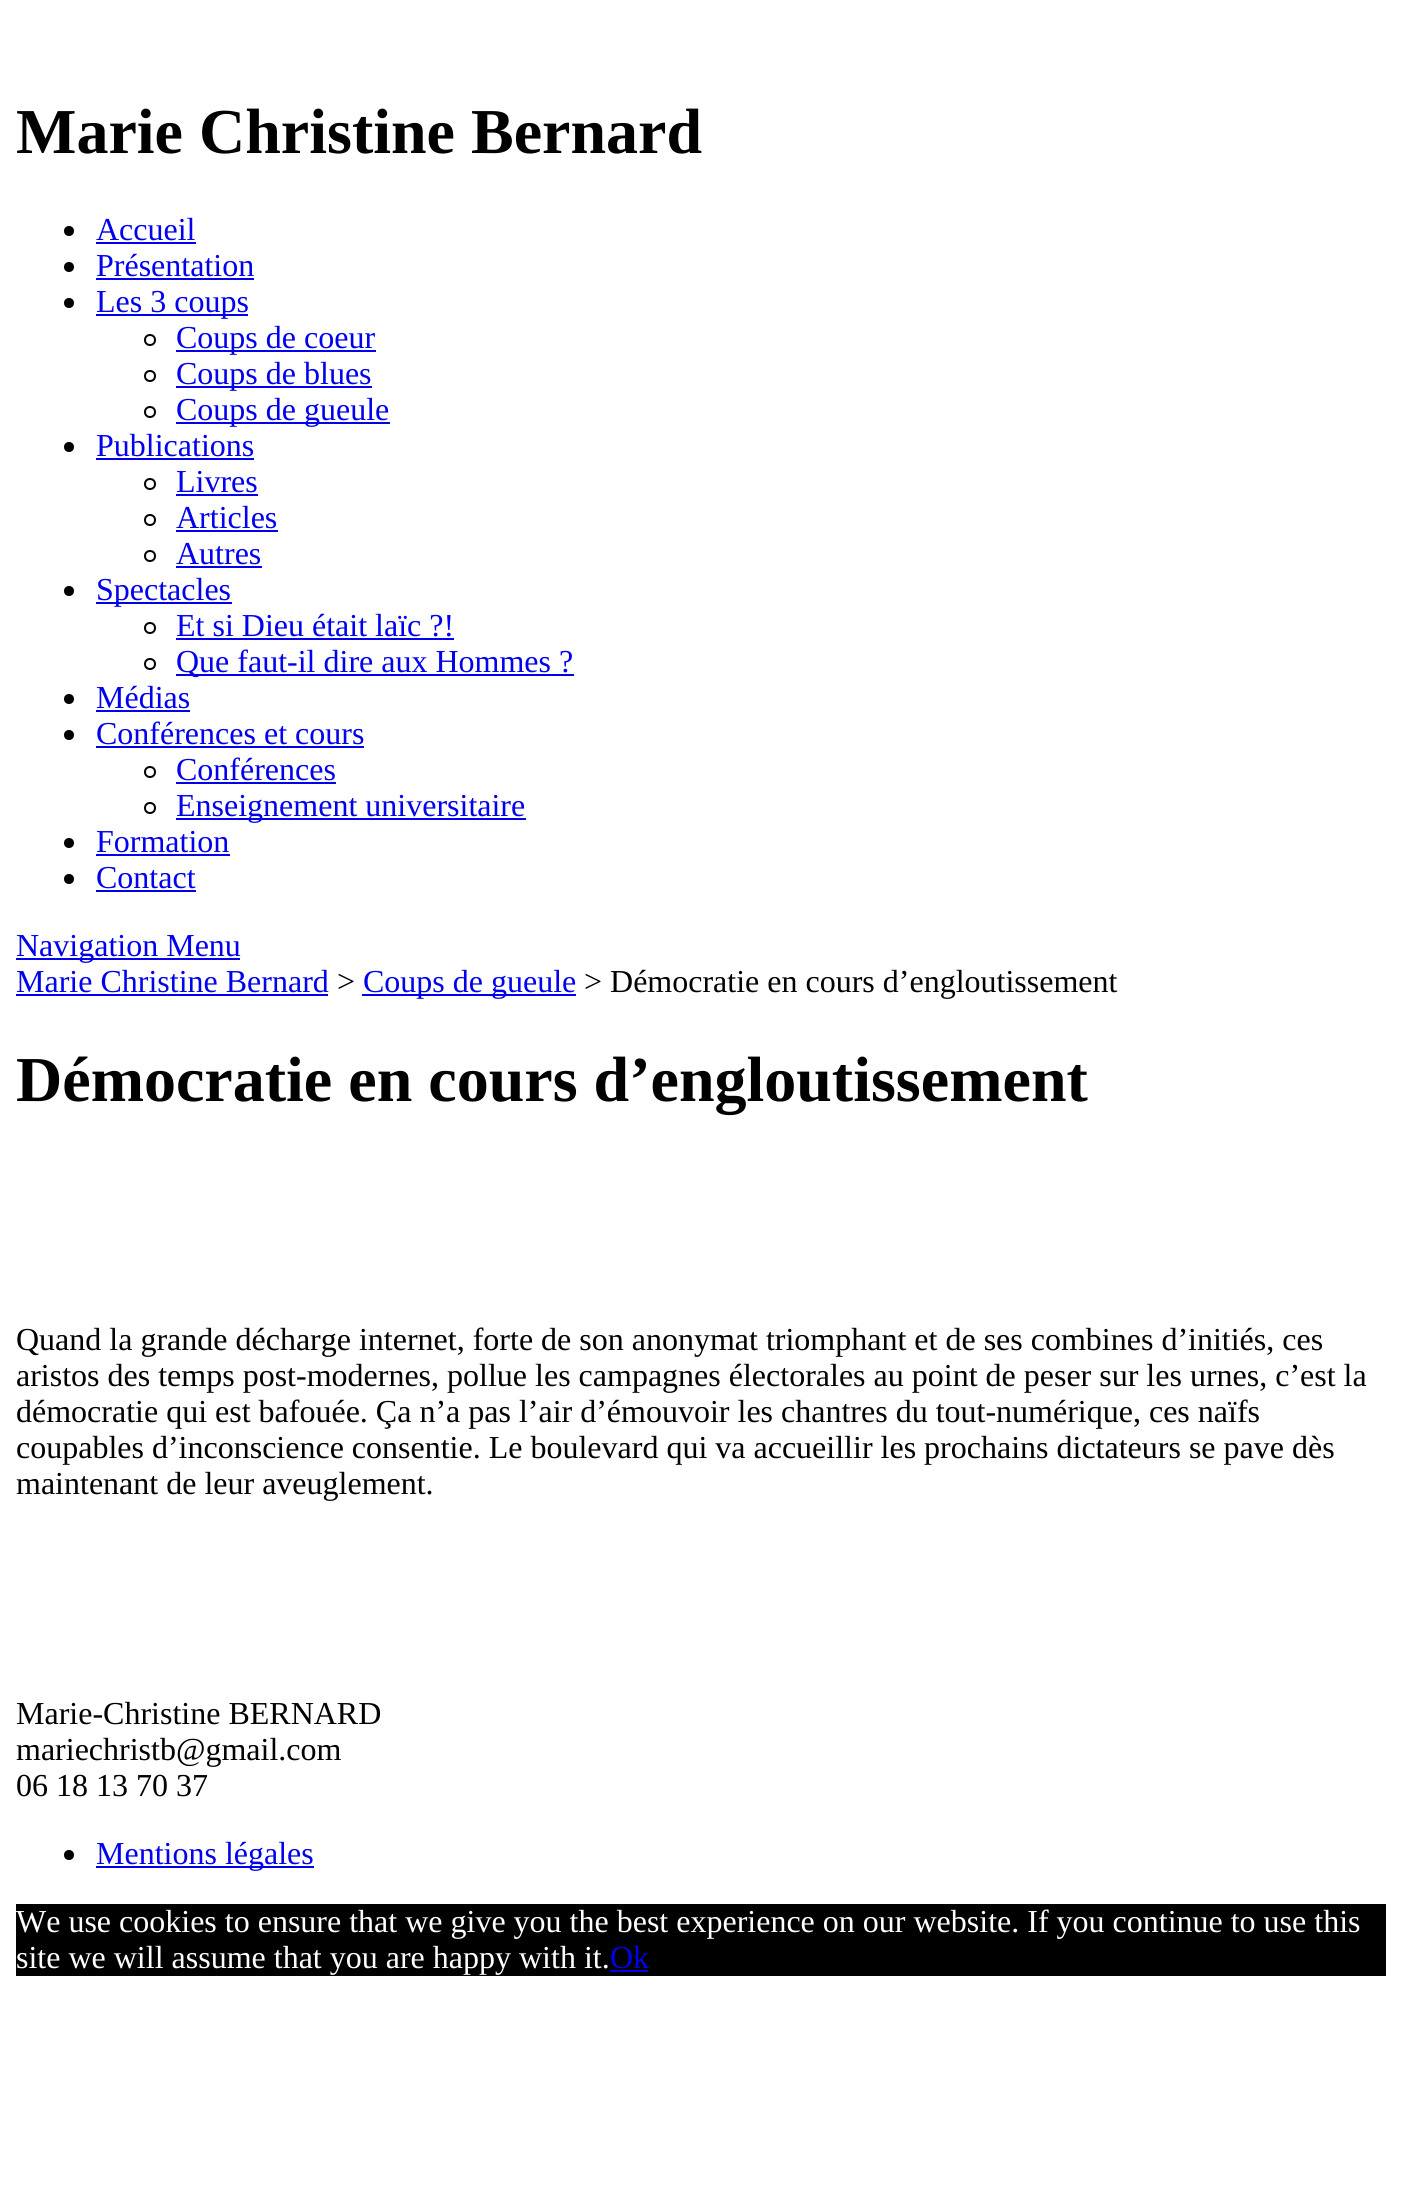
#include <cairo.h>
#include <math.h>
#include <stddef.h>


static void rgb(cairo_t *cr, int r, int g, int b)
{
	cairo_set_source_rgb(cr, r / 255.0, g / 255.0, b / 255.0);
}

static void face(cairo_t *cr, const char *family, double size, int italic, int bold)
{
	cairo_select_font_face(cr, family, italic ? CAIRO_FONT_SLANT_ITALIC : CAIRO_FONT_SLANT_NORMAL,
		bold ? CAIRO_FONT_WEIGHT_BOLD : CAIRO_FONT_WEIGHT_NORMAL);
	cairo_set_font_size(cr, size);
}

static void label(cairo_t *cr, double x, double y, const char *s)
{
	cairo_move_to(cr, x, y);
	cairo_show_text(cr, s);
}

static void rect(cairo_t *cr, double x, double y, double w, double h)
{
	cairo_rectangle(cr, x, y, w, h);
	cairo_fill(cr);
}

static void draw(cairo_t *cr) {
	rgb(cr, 255, 255, 255);
	cairo_paint(cr);
	face(cr, "Liberation Serif", 64, 0, 1);
	rgb(cr, 0, 0, 0);
	label(cr, 16, 153, "Marie Christine Bernard");
	cairo_new_path(cr);
	cairo_arc(cr, 69, 231, 5, 0, 2 * M_PI);
	cairo_fill(cr);
	face(cr, "Liberation Serif", 32, 0, 0);
	rgb(cr, 0, 0, 238);
	label(cr, 96, 240, "Accueil");
	rect(cr, 96, 242, 100, 2);
	rgb(cr, 0, 0, 0);
	cairo_new_path(cr);
	cairo_arc(cr, 69, 267, 5, 0, 2 * M_PI);
	cairo_fill(cr);
	rgb(cr, 0, 0, 238);
	label(cr, 96, 276, "Présentation");
	rect(cr, 96, 278, 158, 2);
	rgb(cr, 0, 0, 0);
	cairo_new_path(cr);
	cairo_arc(cr, 69, 303, 5, 0, 2 * M_PI);
	cairo_fill(cr);
	rgb(cr, 0, 0, 238);
	rect(cr, 96, 314, 152, 2);
	label(cr, 96, 312, "Les 3 coups");
	cairo_new_path(cr);
	cairo_arc(cr, 150, 340, 5, 0, 2 * M_PI);
	rgb(cr, 0, 0, 0);
	cairo_stroke(cr);
	rgb(cr, 0, 0, 238);
	rect(cr, 176, 350, 200, 2);
	label(cr, 176, 348, "Coups de coeur");
	cairo_new_path(cr);
	cairo_arc(cr, 150, 376, 5, 0, 2 * M_PI);
	rgb(cr, 0, 0, 0);
	cairo_stroke(cr);
	rgb(cr, 0, 0, 238);
	rect(cr, 176, 386, 196, 2);
	label(cr, 176, 384, "Coups de blues");
	cairo_new_path(cr);
	cairo_arc(cr, 150, 412, 5, 0, 2 * M_PI);
	rgb(cr, 0, 0, 0);
	cairo_stroke(cr);
	rgb(cr, 0, 0, 238);
	rect(cr, 176, 422, 214, 2);
	label(cr, 176, 420, "Coups de gueule");
	rgb(cr, 0, 0, 0);
	cairo_new_path(cr);
	cairo_arc(cr, 69, 447, 5, 0, 2 * M_PI);
	cairo_fill(cr);
	rgb(cr, 0, 0, 238);
	label(cr, 96, 456, "Publications");
	rect(cr, 96, 458, 158, 2);
	cairo_new_path(cr);
	cairo_arc(cr, 150, 484, 5, 0, 2 * M_PI);
	rgb(cr, 0, 0, 0);
	cairo_stroke(cr);
	rgb(cr, 0, 0, 238);
	label(cr, 176, 492, "Livres");
	rect(cr, 176, 494, 82, 2);
	cairo_new_path(cr);
	cairo_arc(cr, 150, 520, 5, 0, 2 * M_PI);
	rgb(cr, 0, 0, 0);
	cairo_stroke(cr);
	rgb(cr, 0, 0, 238);
	label(cr, 176, 528, "Articles");
	rect(cr, 176, 530, 102, 2);
	cairo_new_path(cr);
	cairo_arc(cr, 150, 556, 5, 0, 2 * M_PI);
	rgb(cr, 0, 0, 0);
	cairo_stroke(cr);
	rgb(cr, 0, 0, 238);
	label(cr, 176, 564, "Autres");
	rect(cr, 176, 566, 86, 2);
	rgb(cr, 0, 0, 0);
	cairo_new_path(cr);
	cairo_arc(cr, 69, 591, 5, 0, 2 * M_PI);
	cairo_fill(cr);
	rgb(cr, 0, 0, 238);
	rect(cr, 96, 602, 136, 2);
	label(cr, 96, 600, "Spectacles");
	cairo_new_path(cr);
	cairo_arc(cr, 150, 628, 5, 0, 2 * M_PI);
	rgb(cr, 0, 0, 0);
	cairo_stroke(cr);
	rgb(cr, 0, 0, 238);
	label(cr, 176, 636, "Et si Dieu était laïc ?!");
	rect(cr, 176, 638, 278, 2);
	cairo_new_path(cr);
	cairo_arc(cr, 150, 664, 5, 0, 2 * M_PI);
	rgb(cr, 0, 0, 0);
	cairo_stroke(cr);
	rgb(cr, 0, 0, 238);
	rect(cr, 176, 674, 398, 2);
	label(cr, 176, 672, "Que faut-il dire aux Hommes ?");
	rgb(cr, 0, 0, 0);
	cairo_new_path(cr);
	cairo_arc(cr, 69, 699, 5, 0, 2 * M_PI);
	cairo_fill(cr);
	rgb(cr, 0, 0, 238);
	label(cr, 96, 708, "Médias");
	rect(cr, 96, 710, 94, 2);
	rgb(cr, 0, 0, 0);
	cairo_new_path(cr);
	cairo_arc(cr, 69, 735, 5, 0, 2 * M_PI);
	cairo_fill(cr);
	rgb(cr, 0, 0, 238);
	label(cr, 96, 744, "Conférences et cours");
	rect(cr, 96, 746, 268, 2);
	cairo_new_path(cr);
	cairo_arc(cr, 150, 772, 5, 0, 2 * M_PI);
	rgb(cr, 0, 0, 0);
	cairo_stroke(cr);
	rgb(cr, 0, 0, 238);
	label(cr, 176, 780, "Conférences");
	rect(cr, 176, 782, 160, 2);
	cairo_new_path(cr);
	cairo_arc(cr, 150, 808, 5, 0, 2 * M_PI);
	rgb(cr, 0, 0, 0);
	cairo_stroke(cr);
	rgb(cr, 0, 0, 238);
	rect(cr, 176, 818, 350, 2);
	label(cr, 176, 816, "Enseignement universitaire");
	rgb(cr, 0, 0, 0);
	cairo_new_path(cr);
	cairo_arc(cr, 69, 843, 5, 0, 2 * M_PI);
	cairo_fill(cr);
	rgb(cr, 0, 0, 238);
	label(cr, 96, 852, "Formation");
	rect(cr, 96, 854, 134, 2);
	rgb(cr, 0, 0, 0);
	cairo_new_path(cr);
	cairo_arc(cr, 69, 879, 5, 0, 2 * M_PI);
	cairo_fill(cr);
	rgb(cr, 0, 0, 238);
	label(cr, 96, 888, "Contact");
	rect(cr, 96, 890, 100, 2);
	rect(cr, 16, 958, 224, 2);
	label(cr, 16, 956, "Navigation Menu");
	label(cr, 16, 992, "Marie Christine Bernard");
	rect(cr, 16, 994, 312, 2);
	rgb(cr, 0, 0, 0);
	label(cr, 337, 992, ">");
	rgb(cr, 0, 0, 238);
	rect(cr, 362, 994, 214, 2);
	label(cr, 363, 992, "Coups de gueule");
	rgb(cr, 0, 0, 0);
	label(cr, 584, 992, "> Démocratie en cours d’engloutissement");
	face(cr, "Liberation Serif", 64, 0, 1);
	label(cr, 16, 1101, "Démocratie en cours d’engloutissement");
	face(cr, "Liberation Serif", 32, 0, 0);
	label(cr, 16, 1350, "Quand la grande décharge internet, forte de son anonymat triomphant et de ses combines d’initiés, ces");
	label(cr, 16, 1386, "aristos des temps post-modernes, pollue les campagnes électorales au point de peser sur les urnes, c’est la");
	label(cr, 16, 1422, "démocratie qui est bafouée. Ça n’a pas l’air d’émouvoir les chantres du tout-numérique, ces naïfs");
	label(cr, 16, 1458, "coupables d’inconscience consentie. Le boulevard qui va accueillir les prochains dictateurs se pave dès");
	label(cr, 16, 1494, "maintenant de leur aveuglement.");
	label(cr, 16, 1724, "Marie-Christine BERNARD");
	label(cr, 16, 1760, "mariechristb@gmail.com");
	label(cr, 16, 1796, "06 18 13 70 37");
	cairo_new_path(cr);
	cairo_arc(cr, 69, 1855, 5, 0, 2 * M_PI);
	cairo_fill(cr);
	rgb(cr, 0, 0, 238);
	rect(cr, 96, 1866, 218, 2);
	label(cr, 96, 1864, "Mentions légales");
	rgb(cr, 0, 0, 0);
	rect(cr, 16, 1904, 1370, 72);
	rgb(cr, 255, 255, 255);
	label(cr, 16, 1932, "We use cookies to ensure that we give you the best experience on our website. If you continue to use this");
	label(cr, 16, 1968, "site we will assume that you are happy with it.");
	rgb(cr, 0, 0, 238);
	label(cr, 610, 1968, "Ok");
	rect(cr, 610, 1970, 38, 2);
}

int main(void) {
	cairo_surface_t *surface = cairo_image_surface_create(CAIRO_FORMAT_RGB24, 1401, 2207);
	cairo_t *cr = cairo_create(surface);
	cairo_font_options_t *options = cairo_font_options_create();
	cairo_font_options_set_hint_metrics(options, CAIRO_HINT_METRICS_OFF);
	cairo_font_options_set_hint_style(options, CAIRO_HINT_STYLE_NONE);
	cairo_set_font_options(cr, options);
	cairo_set_miter_limit(cr, 4);
	draw(cr);
	cairo_surface_write_to_png(surface, "render.png");
	cairo_font_options_destroy(options);
	cairo_destroy(cr);
	cairo_surface_destroy(surface);
	return 0;
}
